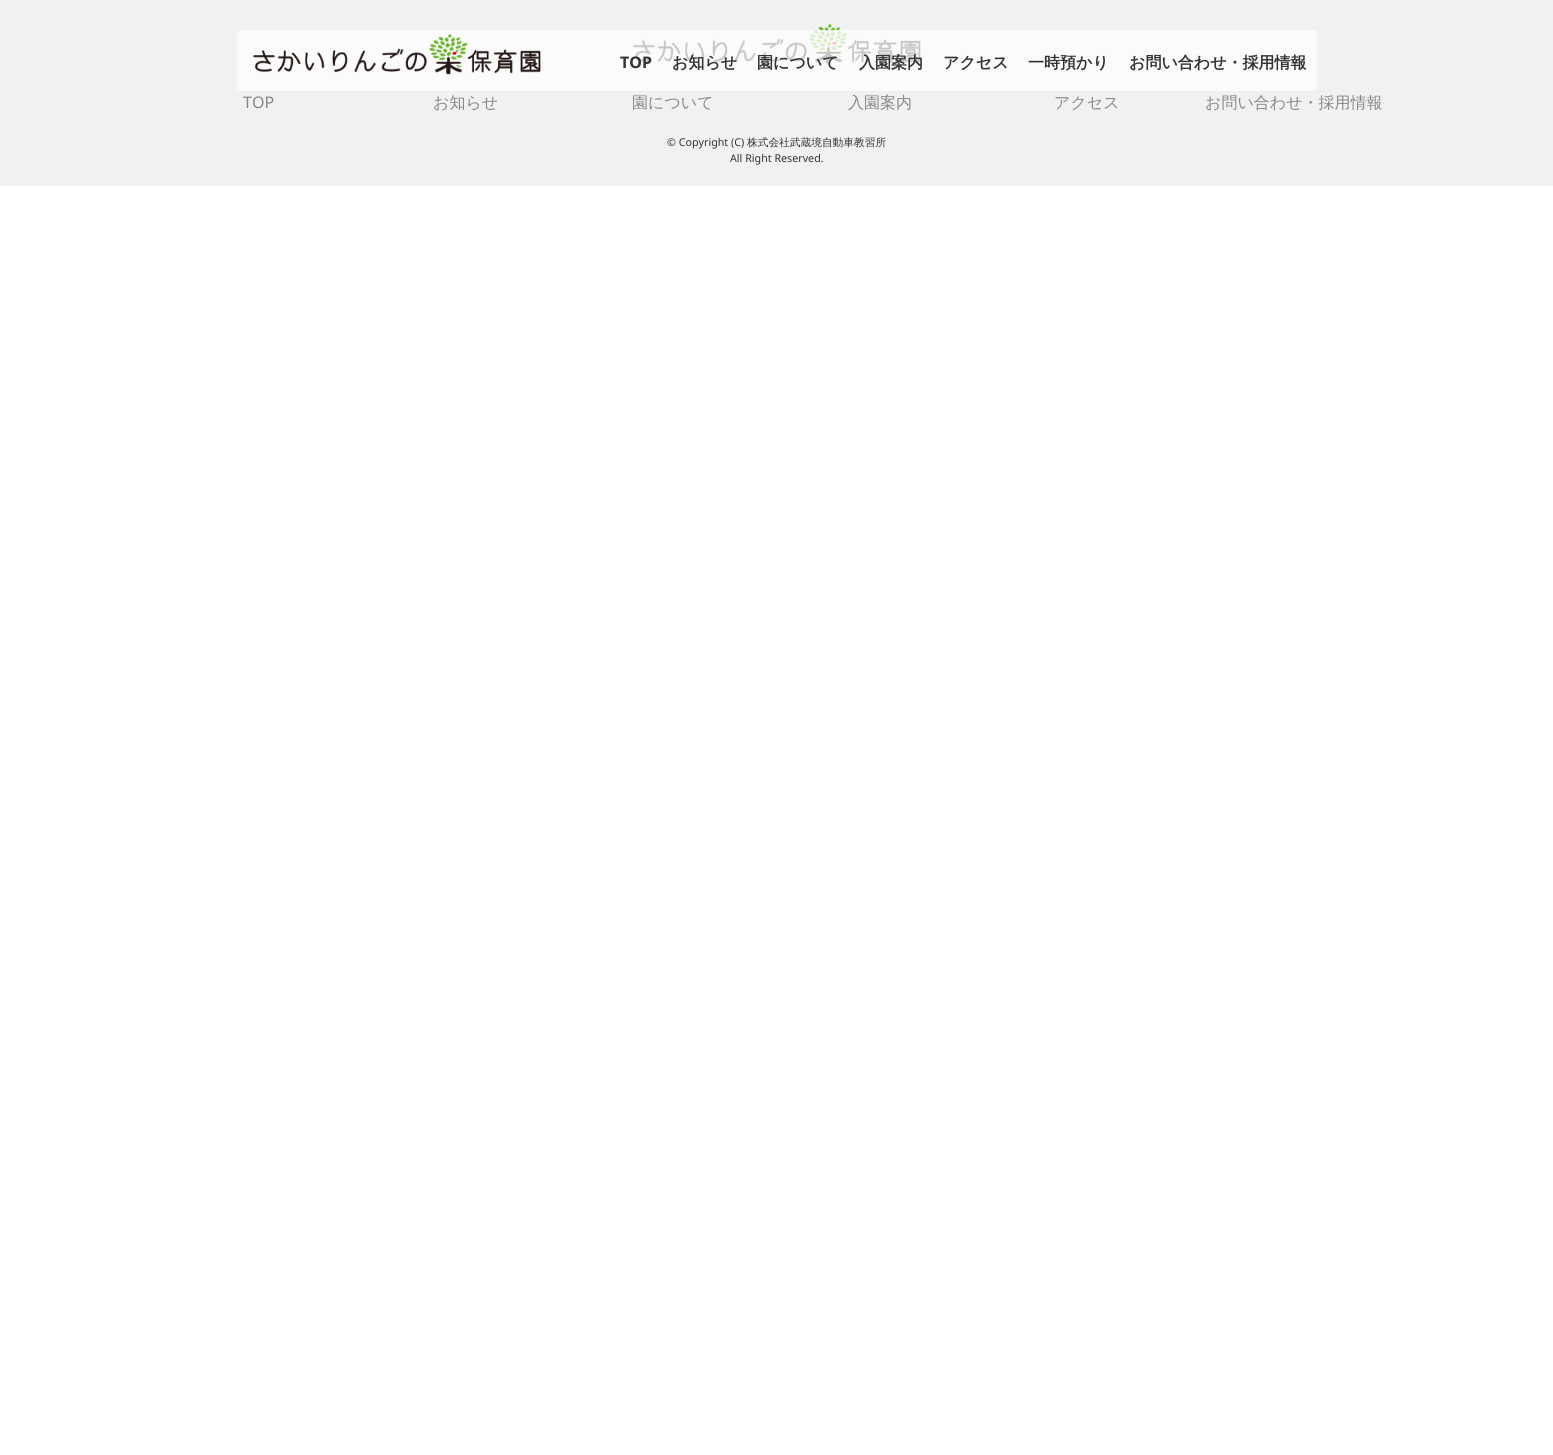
#include <cairo.h>
#include <math.h>
#include <stddef.h>


static void rgb(cairo_t *cr, int r, int g, int b)
{
	cairo_set_source_rgb(cr, r / 255.0, g / 255.0, b / 255.0);
}

static void face(cairo_t *cr, const char *family, double size, int italic, int bold)
{
	cairo_select_font_face(cr, family, italic ? CAIRO_FONT_SLANT_ITALIC : CAIRO_FONT_SLANT_NORMAL,
		bold ? CAIRO_FONT_WEIGHT_BOLD : CAIRO_FONT_WEIGHT_NORMAL);
	cairo_set_font_size(cr, size);
}

static void label(cairo_t *cr, double x, double y, const char *s)
{
	cairo_move_to(cr, x, y);
	cairo_show_text(cr, s);
}

static void rect(cairo_t *cr, double x, double y, double w, double h)
{
	cairo_rectangle(cr, x, y, w, h);
	cairo_fill(cr);
}

static void rrect(cairo_t *cr, double x, double y, double w, double h, double r)
{
	cairo_new_sub_path(cr);
	cairo_arc(cr, x + w - r, y + h - r, r, 0, M_PI / 2);
	cairo_arc(cr, x + r, y + h - r, r, M_PI / 2, M_PI);
	cairo_arc(cr, x + r, y + r, r, M_PI, 1.5 * M_PI);
	cairo_arc(cr, x + w - r, y + r, r, 1.5 * M_PI, 2 * M_PI);
	cairo_close_path(cr);
}

static void image(cairo_t *cr, const char *path, double x, double y, double w, double h)
{
	cairo_surface_t *image = cairo_image_surface_create_from_png(path);
	cairo_save(cr);
	cairo_set_source_surface(cr, image, x, y);
	cairo_rectangle(cr, x, y, w, h);
	cairo_fill(cr);
	cairo_restore(cr);
	cairo_surface_destroy(image);
}

static void draw(cairo_t *cr) {
	rgb(cr, 255, 255, 255);
	cairo_paint(cr);
	rgb(cr, 241, 241, 241);
	rect(cr, 0, 0, 1553, 186);
	image(cr, "image1.png", 633, 24, 288, 41);
	cairo_set_source_rgba(cr, 1, 1, 1, 0.75);
	rrect(cr, 237, 30, 1080, 61, 5);
	cairo_fill(cr);
	image(cr, "image0.png", 253, 34, 288, 41);
	face(cr, "Noto Sans", 16, 0, 1);
	rgb(cr, 51, 51, 51);
	label(cr, 620, 68, "TOP");
	face(cr, "WenQuanYi Zen Hei", 16, 0, 1);
	label(cr, 672, 68, "お知らせ");
	label(cr, 757, 68, "園について");
	label(cr, 859, 68, "入園案内");
	label(cr, 943, 68, "アクセス");
	label(cr, 1028, 68, "一時預かり");
	label(cr, 1129, 68, "お問い合わせ・採用情報");
	face(cr, "Noto Sans", 16, 0, 0);
	rgb(cr, 136, 136, 136);
	label(cr, 243, 108, "TOP");
	face(cr, "WenQuanYi Zen Hei Medium", 16, 0, 0);
	label(cr, 433, 108, "お知らせ");
	label(cr, 632, 108, "園について");
	label(cr, 848, 108, "入園案内");
	label(cr, 1054, 108, "アクセス");
	label(cr, 1205, 108, "お問い合わせ・採用情報");
	face(cr, "Noto Sans", 10.7, 0, 0);
	rgb(cr, 51, 51, 51);
	label(cr, 667, 146, "© Copyright (C)");
	face(cr, "WenQuanYi Zen Hei Medium", 10.7, 0, 0);
	label(cr, 747, 146, "株式会社武蔵境自動車教習所");
	face(cr, "Noto Sans", 10.7, 0, 0);
	label(cr, 730, 162, "All Right Reserved.");
}

int main(void) {
	cairo_surface_t *surface = cairo_image_surface_create(CAIRO_FORMAT_RGB24, 1553, 1455);
	cairo_t *cr = cairo_create(surface);
	cairo_font_options_t *options = cairo_font_options_create();
	cairo_font_options_set_hint_metrics(options, CAIRO_HINT_METRICS_OFF);
	cairo_font_options_set_hint_style(options, CAIRO_HINT_STYLE_NONE);
	cairo_set_font_options(cr, options);
	cairo_set_miter_limit(cr, 4);
	draw(cr);
	cairo_surface_write_to_png(surface, "render.png");
	cairo_font_options_destroy(options);
	cairo_destroy(cr);
	cairo_surface_destroy(surface);
	return 0;
}
